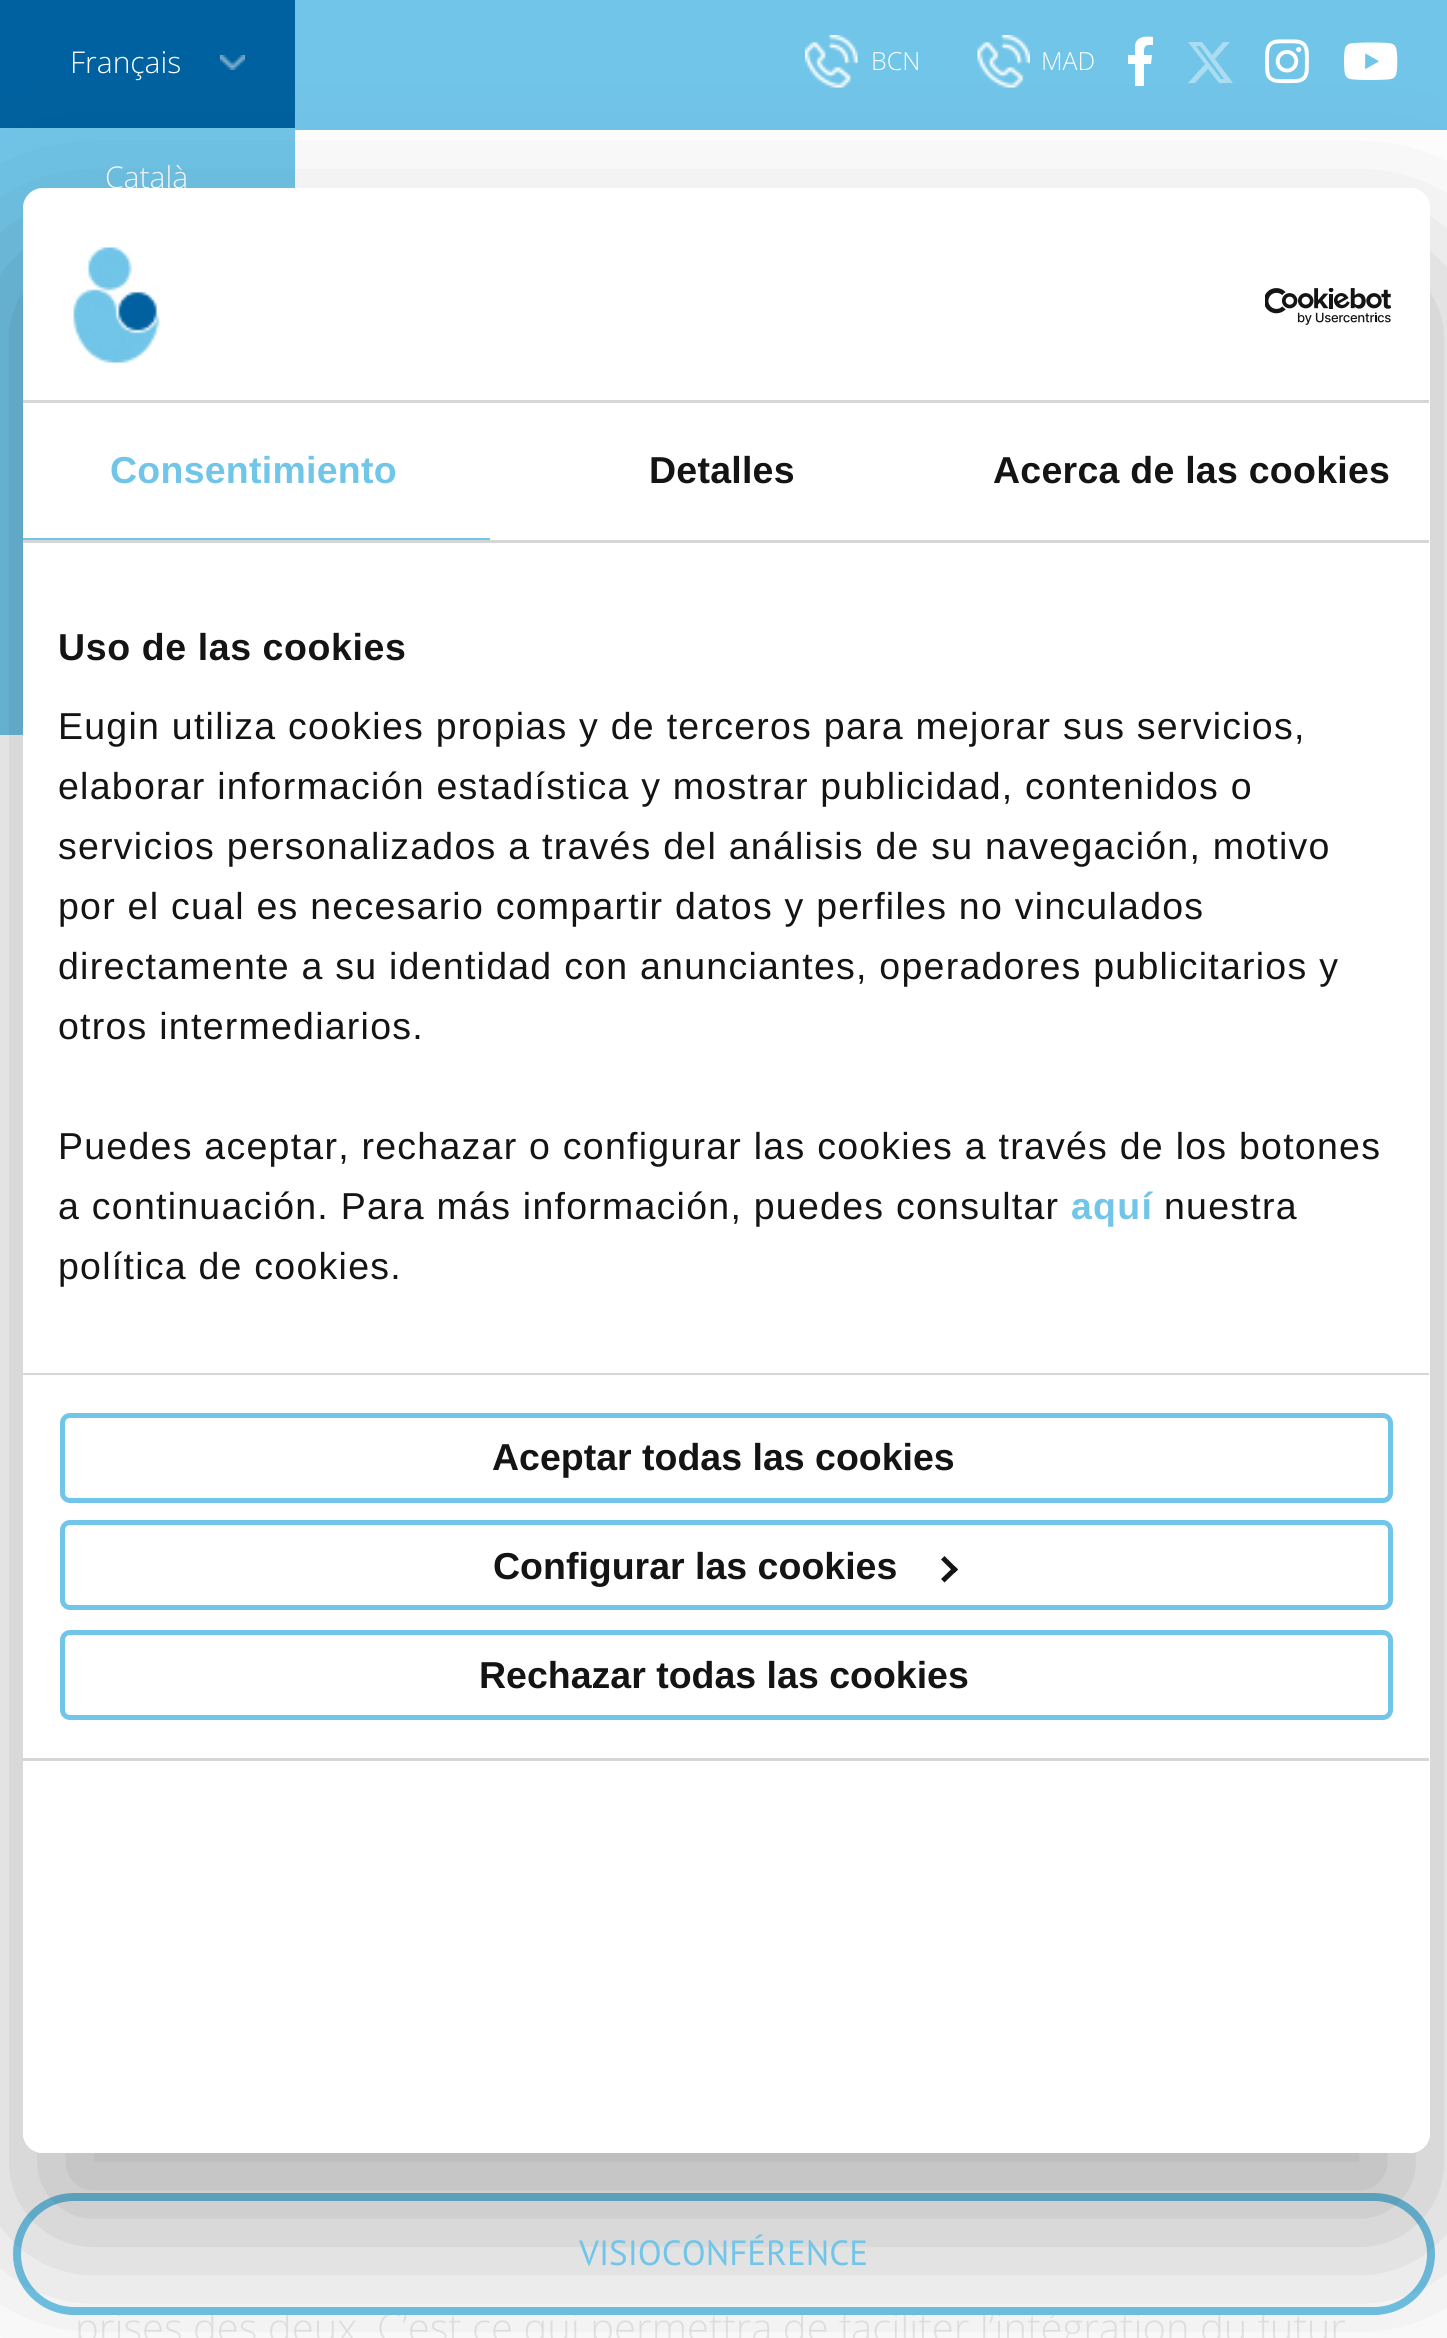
#include <cairo.h>
#include <math.h>
#include <stddef.h>


static void rgb(cairo_t *cr, int r, int g, int b)
{
	cairo_set_source_rgb(cr, r / 255.0, g / 255.0, b / 255.0);
}

static void face(cairo_t *cr, const char *family, double size, int italic, int bold)
{
	cairo_select_font_face(cr, family, italic ? CAIRO_FONT_SLANT_ITALIC : CAIRO_FONT_SLANT_NORMAL,
		bold ? CAIRO_FONT_WEIGHT_BOLD : CAIRO_FONT_WEIGHT_NORMAL);
	cairo_set_font_size(cr, size);
}

static void label(cairo_t *cr, double x, double y, const char *s)
{
	cairo_move_to(cr, x, y);
	cairo_show_text(cr, s);
}

static void tracked(cairo_t *cr, double x, double y, const char *s, double letter, double word)
{
	cairo_move_to(cr, x, y);
	while (*s) {
		char ch[5] = {0};
		int n = 0;
		do ch[n++] = *s++; while ((*s & 0xC0) == 0x80);
		cairo_show_text(cr, ch);
		cairo_rel_move_to(cr, letter + word * (*ch == ' '), 0);
	}
}

static void rect(cairo_t *cr, double x, double y, double w, double h)
{
	cairo_rectangle(cr, x, y, w, h);
	cairo_fill(cr);
}

static void rrect(cairo_t *cr, double x, double y, double w, double h, double r)
{
	cairo_new_sub_path(cr);
	cairo_arc(cr, x + w - r, y + h - r, r, 0, M_PI / 2);
	cairo_arc(cr, x + r, y + h - r, r, M_PI / 2, M_PI);
	cairo_arc(cr, x + r, y + r, r, M_PI, 1.5 * M_PI);
	cairo_arc(cr, x + w - r, y + r, r, 1.5 * M_PI, 2 * M_PI);
	cairo_close_path(cr);
}

static void soft_shadow(cairo_t *cr, double x, double y, double w, double h, double r, double blur, double alpha)
{
	cairo_push_group_with_content(cr, CAIRO_CONTENT_ALPHA);
	cairo_set_operator(cr, CAIRO_OPERATOR_SOURCE);
	for (int i = 15; i >= -15 && fmin(w, h) + blur * i / 3 > 0; i -= 2) {
		double e = blur * i / 6;
		cairo_set_source_rgba(cr, 0, 0, 0, alpha * erfc((i - 1) / 8.5) / 2);
		rrect(cr, x - e, y - e, w + 2 * e, h + 2 * e, fmax(0, fmin(r + e + blur * .6, fmin(w, h) / 2 + e)));
		cairo_fill(cr);
	}
	cairo_pattern_t *soft = cairo_pop_group(cr);
	cairo_mask(cr, soft);
	cairo_pattern_destroy(soft);
}

static void image(cairo_t *cr, const char *path, double x, double y, double w, double h)
{
	cairo_surface_t *image = cairo_image_surface_create_from_png(path);
	cairo_save(cr);
	cairo_set_source_surface(cr, image, x, y);
	cairo_rectangle(cr, x, y, w, h);
	cairo_fill(cr);
	cairo_restore(cr);
	cairo_surface_destroy(image);
}

static void draw(cairo_t *cr) {
	rgb(cr, 255, 255, 255);
	cairo_paint(cr);
	rgb(cr, 113, 197, 232);
	rect(cr, 295, 0, 1152, 130);
	rgb(cr, 0, 97, 160);
	rect(cr, 0, 0, 295, 128);
	face(cr, "Open Sans Light", 30, 0, 0);
	rgb(cr, 255, 255, 255);
	label(cr, 70, 73, "Français");
	image(cr, "image0.png", 220, 55, 25, 15);
	rgb(cr, 113, 197, 232);
	rect(cr, 0, 128, 295, 607);
	rgb(cr, 255, 255, 255);
	label(cr, 105, 188, "Català");
	image(cr, "image1.png", 805, 35, 53, 53);
	face(cr, "Open Sans Light", 25, 0, 0);
	label(cr, 871, 70, "BCN");
	image(cr, "image2.png", 977, 35, 53, 53);
	label(cr, 1041, 70, "MAD");
	cairo_new_path(cr);
	cairo_move_to(cr, 1149, 45);
	cairo_curve_to(cr, 1143, 45, 1144, 51, 1144, 55);
	cairo_line_to(cr, 1152, 55);
	cairo_line_to(cr, 1151, 64);
	cairo_line_to(cr, 1144, 64);
	cairo_line_to(cr, 1144, 86);
	cairo_line_to(cr, 1135, 86);
	cairo_line_to(cr, 1135, 64);
	cairo_line_to(cr, 1128, 64);
	cairo_line_to(cr, 1128, 55);
	cairo_line_to(cr, 1135, 55);
	cairo_line_to(cr, 1135, 45);
	cairo_curve_to(cr, 1137, 36, 1146, 36, 1153, 37);
	cairo_line_to(cr, 1153, 45);
	cairo_close_path(cr);
	cairo_fill(cr);
	rgb(cr, 170, 220, 242);
	cairo_new_path(cr);
	cairo_move_to(cr, 1223, 42);
	cairo_line_to(cr, 1230, 42);
	cairo_line_to(cr, 1215, 59);
	cairo_line_to(cr, 1233, 83);
	cairo_line_to(cr, 1219, 83);
	cairo_line_to(cr, 1208, 69);
	cairo_line_to(cr, 1195, 83);
	cairo_line_to(cr, 1188, 83);
	cairo_line_to(cr, 1205, 64);
	cairo_line_to(cr, 1188, 42);
	cairo_line_to(cr, 1202, 42);
	cairo_line_to(cr, 1212, 55);
	cairo_close_path(cr);
	cairo_move_to(cr, 1221, 79);
	cairo_line_to(cr, 1224, 79);
	cairo_line_to(cr, 1200, 46);
	cairo_line_to(cr, 1196, 46);
	cairo_close_path(cr);
	cairo_fill(cr);
	image(cr, "image3.png", 1265, 39, 44, 45);
	image(cr, "image4.png", 1343, 42, 55, 38);
	face(cr, "Open Sans Light", 40, 0, 0);
	rgb(cr, 232, 232, 232);
	label(cr, 75, 2342, "prises des deux. C’est ce qui permettra de faciliter l’intégration du futur");
	rgb(cr, 255, 255, 255);
	rrect(cr, 17, 2197, 1414, 114, 57);
	cairo_fill_preserve(cr);
	rgb(cr, 113, 197, 232);
	cairo_set_line_width(cr, 8);
	cairo_stroke(cr);
	cairo_save(cr);
	cairo_set_fill_rule(cr, CAIRO_FILL_RULE_EVEN_ODD);
	cairo_new_path(cr);
	cairo_move_to(cr, 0, 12);
	cairo_line_to(cr, 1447, 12);
	cairo_line_to(cr, 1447, 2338);
	cairo_line_to(cr, 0, 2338);
	cairo_close_path(cr);
	cairo_move_to(cr, 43, 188);
	cairo_line_to(cr, 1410, 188);
	cairo_curve_to(cr, 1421, 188, 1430, 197, 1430, 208);
	cairo_line_to(cr, 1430, 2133);
	cairo_curve_to(cr, 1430, 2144, 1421, 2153, 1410, 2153);
	cairo_line_to(cr, 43, 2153);
	cairo_curve_to(cr, 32, 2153, 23, 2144, 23, 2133);
	cairo_line_to(cr, 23, 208);
	cairo_curve_to(cr, 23, 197, 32, 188, 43, 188);
	cairo_close_path(cr);
	cairo_clip(cr);
	rgb(cr, 0, 0, 0);
	soft_shadow(cr, 23, 268, 1407, 1965, 20, 85, 0.3);
	cairo_restore(cr);
	rgb(cr, 255, 255, 255);
	rrect(cr, 23, 188, 1407, 1965, 20);
	cairo_fill(cr);
	rgb(cr, 214, 214, 214);
	rect(cr, 23, 400, 1406, 3);
	image(cr, "image5.png", 73, 247, 87, 116);
	image(cr, "image6.png", 1265, 288, 127, 37);
	rect(cr, 23, 540, 1406, 3);
	rgb(cr, 113, 197, 232);
	rect(cr, 23, 538, 467, 2);
	face(cr, "Liberation Sans", 37.5, 0, 1);
	tracked(cr, 110, 483, "Consentimiento", 0.25, 0);
	rgb(cr, 20, 20, 20);
	tracked(cr, 649, 483, "Detalles", 0.25, 0);
	tracked(cr, 993, 483, "Acerca de las cookies", 0.25, 0);
	rgb(cr, 214, 214, 214);
	rect(cr, 23, 1373, 1406, 2);
	rgb(cr, 20, 20, 20);
	tracked(cr, 58, 660, "Uso de las cookies", 0.6, 0);
	face(cr, "Liberation Sans", 37.5, 0, 0);
	tracked(cr, 58, 739, "Eugin utiliza cookies propias y de terceros para mejorar sus servicios,", 1.25, 0);
	tracked(cr, 58, 799, "elaborar información estadística y mostrar publicidad, contenidos o", 1.25, 0);
	tracked(cr, 58, 859, "servicios personalizados a través del análisis de su navegación, motivo", 1.25, 0);
	tracked(cr, 58, 919, "por el cual es necesario compartir datos y perfiles no vinculados", 1.25, 0);
	tracked(cr, 58, 979, "directamente a su identidad con anunciantes, operadores publicitarios y", 1.25, 0);
	tracked(cr, 58, 1039, "otros intermediarios.", 1.25, 0);
	tracked(cr, 58, 1159, "Puedes aceptar, rechazar o configurar las cookies a través de los botones", 1.25, 0);
	tracked(cr, 58, 1219, "a continuación. Para más información, puedes consultar", 1.25, 0);
	face(cr, "Liberation Sans", 37.5, 0, 1);
	rgb(cr, 113, 197, 232);
	tracked(cr, 1071, 1219, "aquí", 1.25, 0);
	face(cr, "Liberation Sans", 37.5, 0, 0);
	rgb(cr, 20, 20, 20);
	tracked(cr, 1164, 1219, "nuestra", 1.25, 0);
	tracked(cr, 58, 1279, "política de cookies.", 1.25, 0);
	rgb(cr, 214, 214, 214);
	rect(cr, 23, 1758, 1406, 3);
	rrect(cr, 62.5, 1415.5, 1328, 85, 7.5);
	rgb(cr, 113, 197, 232);
	cairo_set_line_width(cr, 5);
	cairo_stroke(cr);
	face(cr, "Liberation Sans", 37.5, 0, 1);
	rgb(cr, 20, 20, 20);
	label(cr, 492, 1470, "Aceptar todas las cookies");
	rrect(cr, 62.5, 1522.5, 1328, 85, 7.5);
	rgb(cr, 113, 197, 232);
	cairo_stroke(cr);
	rgb(cr, 20, 20, 20);
	label(cr, 493, 1579, "Configurar las cookies");
	cairo_new_path(cr);
	cairo_move_to(cr, 944.5, 1556);
	cairo_line_to(cr, 958, 1569.5);
	cairo_line_to(cr, 954.5, 1573);
	cairo_line_to(cr, 941, 1559.5);
	cairo_close_path(cr);
	cairo_fill(cr);
	cairo_new_path(cr);
	cairo_move_to(cr, 954.5, 1566);
	cairo_line_to(cr, 958, 1569.5);
	cairo_line_to(cr, 944.5, 1582.5);
	cairo_line_to(cr, 941, 1579);
	cairo_close_path(cr);
	cairo_fill(cr);
	rrect(cr, 62.5, 1632.5, 1328, 85, 7.5);
	rgb(cr, 113, 197, 232);
	cairo_stroke(cr);
	rgb(cr, 20, 20, 20);
	label(cr, 479, 1688, "Rechazar todas las cookies");
	face(cr, "PT Sans", 35, 0, 0);
	rgb(cr, 113, 197, 232);
	label(cr, 579, 2265, "VISIOCONFÉRENCE");
}

int main(void) {
	cairo_surface_t *surface = cairo_image_surface_create(CAIRO_FORMAT_RGB24, 1447, 2338);
	cairo_t *cr = cairo_create(surface);
	cairo_font_options_t *options = cairo_font_options_create();
	cairo_font_options_set_hint_metrics(options, CAIRO_HINT_METRICS_OFF);
	cairo_font_options_set_hint_style(options, CAIRO_HINT_STYLE_NONE);
	cairo_set_font_options(cr, options);
	cairo_set_miter_limit(cr, 4);
	draw(cr);
	cairo_surface_write_to_png(surface, "render.png");
	cairo_font_options_destroy(options);
	cairo_destroy(cr);
	cairo_surface_destroy(surface);
	return 0;
}
